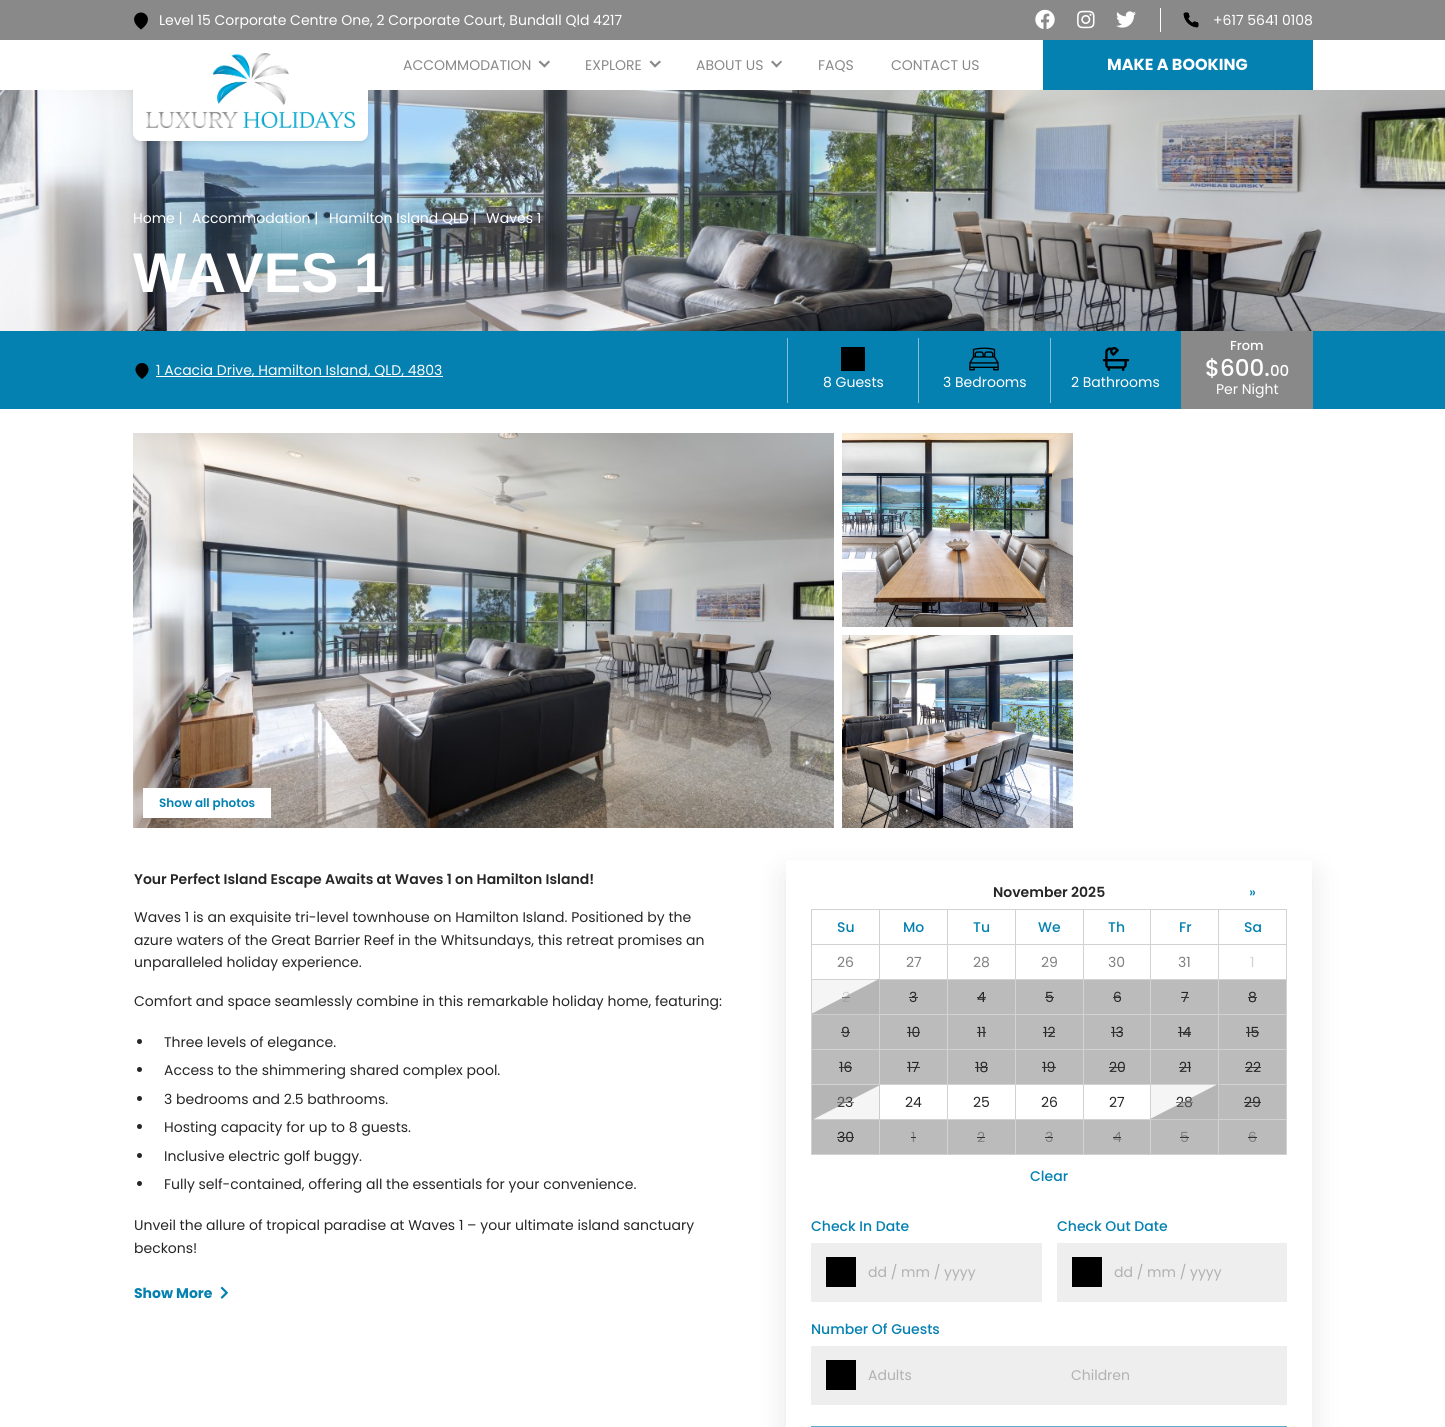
#include <cairo.h>
#include <math.h>
#include <stddef.h>


static void rgb(cairo_t *cr, int r, int g, int b)
{
	cairo_set_source_rgb(cr, r / 255.0, g / 255.0, b / 255.0);
}

static void face(cairo_t *cr, const char *family, double size, int italic, int bold)
{
	cairo_select_font_face(cr, family, italic ? CAIRO_FONT_SLANT_ITALIC : CAIRO_FONT_SLANT_NORMAL,
		bold ? CAIRO_FONT_WEIGHT_BOLD : CAIRO_FONT_WEIGHT_NORMAL);
	cairo_set_font_size(cr, size);
}

static void label(cairo_t *cr, double x, double y, const char *s)
{
	cairo_move_to(cr, x, y);
	cairo_show_text(cr, s);
}

static void rect(cairo_t *cr, double x, double y, double w, double h)
{
	cairo_rectangle(cr, x, y, w, h);
	cairo_fill(cr);
}

static void rrect(cairo_t *cr, double x, double y, double w, double h, double r)
{
	cairo_new_sub_path(cr);
	cairo_arc(cr, x + w - r, y + h - r, r, 0, M_PI / 2);
	cairo_arc(cr, x + r, y + h - r, r, M_PI / 2, M_PI);
	cairo_arc(cr, x + r, y + r, r, M_PI, 1.5 * M_PI);
	cairo_arc(cr, x + w - r, y + r, r, 1.5 * M_PI, 2 * M_PI);
	cairo_close_path(cr);
}

static void soft_shadow(cairo_t *cr, double x, double y, double w, double h, double r, double blur, double alpha)
{
	cairo_push_group_with_content(cr, CAIRO_CONTENT_ALPHA);
	cairo_set_operator(cr, CAIRO_OPERATOR_SOURCE);
	for (int i = 15; i >= -15 && fmin(w, h) + blur * i / 3 > 0; i -= 2) {
		double e = blur * i / 6;
		cairo_set_source_rgba(cr, 0, 0, 0, alpha * erfc((i - 1) / 8.5) / 2);
		rrect(cr, x - e, y - e, w + 2 * e, h + 2 * e, fmax(0, fmin(r + e + blur * .6, fmin(w, h) / 2 + e)));
		cairo_fill(cr);
	}
	cairo_pattern_t *soft = cairo_pop_group(cr);
	cairo_mask(cr, soft);
	cairo_pattern_destroy(soft);
}

static void image(cairo_t *cr, const char *path, double x, double y, double w, double h)
{
	cairo_surface_t *image = cairo_image_surface_create_from_png(path);
	cairo_save(cr);
	cairo_set_source_surface(cr, image, x, y);
	cairo_rectangle(cr, x, y, w, h);
	cairo_fill(cr);
	cairo_restore(cr);
	cairo_surface_destroy(image);
}

static void draw(cairo_t *cr) {
	rgb(cr, 255, 255, 255);
	cairo_paint(cr);
	rgb(cr, 245, 245, 245);
	rect(cr, 1151, 1085, 67, 34);
	rect(cr, 812, 1085, 67, 34);
	rect(cr, 812, 980, 67, 34);
	rgb(cr, 137, 137, 137);
	rect(cr, 0, 0, 1445, 40);
	image(cr, "image0.png", 134, 12, 14, 18);
	face(cr, "Poppins", 14, 0, 0);
	rgb(cr, 255, 255, 255);
	label(cr, 159, 25, "Level 15 Corporate Centre One, 2 Corporate Court, Bundall Qld 4217");
	image(cr, "image1.png", 1035, 9, 20, 20);
	image(cr, "image2.png", 1077, 10, 18, 19);
	image(cr, "image3.png", 1116, 11, 20, 17);
	rect(cr, 1160, 8, 1, 24);
	image(cr, "image4.png", 1183, 12, 16, 16);
	label(cr, 1213, 25, "+617 5641 0108");
	image(cr, "image6.png", 0, 90, 1445, 241);
	rgb(cr, 0, 0, 0);
	soft_shadow(cr, 133, 43, 235, 101, 8, 3, 0.07);
	rgb(cr, 255, 255, 255);
	cairo_new_path(cr);
	cairo_move_to(cr, 133, 40);
	cairo_line_to(cr, 368, 40);
	cairo_line_to(cr, 368, 133);
	cairo_curve_to(cr, 368, 137.5, 364.5, 141, 360, 141);
	cairo_line_to(cr, 141, 141);
	cairo_curve_to(cr, 136.5, 141, 133, 137.5, 133, 133);
	cairo_close_path(cr);
	cairo_fill(cr);
	rect(cr, 130, 40, 3, 50);
	image(cr, "image5.png", 146, 53, 209, 75);
	rect(cr, 368, 40, 3, 50);
	rgb(cr, 137, 137, 137);
	label(cr, 403, 70, "ACCOMMODATION");
	cairo_new_path(cr);
	cairo_move_to(cr, 548.5, 60.5);
	cairo_line_to(cr, 550, 62);
	cairo_line_to(cr, 544.5, 67.5);
	cairo_line_to(cr, 543, 66);
	cairo_close_path(cr);
	cairo_fill(cr);
	cairo_new_path(cr);
	cairo_move_to(cr, 540, 60.5);
	cairo_line_to(cr, 546, 66);
	cairo_line_to(cr, 544.5, 67.5);
	cairo_line_to(cr, 538.5, 62);
	cairo_close_path(cr);
	cairo_fill(cr);
	label(cr, 585, 70, "EXPLORE");
	cairo_new_path(cr);
	cairo_move_to(cr, 659.5, 60.5);
	cairo_line_to(cr, 661, 62);
	cairo_line_to(cr, 655, 67.5);
	cairo_line_to(cr, 653.5, 66);
	cairo_close_path(cr);
	cairo_fill(cr);
	cairo_new_path(cr);
	cairo_move_to(cr, 651, 60.5);
	cairo_line_to(cr, 656.5, 66);
	cairo_line_to(cr, 655, 67.5);
	cairo_line_to(cr, 649.5, 62);
	cairo_close_path(cr);
	cairo_fill(cr);
	label(cr, 696, 70, "ABOUT US");
	cairo_new_path(cr);
	cairo_move_to(cr, 781, 60.5);
	cairo_line_to(cr, 782, 62);
	cairo_line_to(cr, 776.5, 67.5);
	cairo_line_to(cr, 775, 66);
	cairo_close_path(cr);
	cairo_fill(cr);
	cairo_new_path(cr);
	cairo_move_to(cr, 772.5, 60.5);
	cairo_line_to(cr, 778, 66);
	cairo_line_to(cr, 776.5, 67.5);
	cairo_line_to(cr, 771, 62);
	cairo_close_path(cr);
	cairo_fill(cr);
	label(cr, 818, 70, "FAQS");
	label(cr, 891, 70, "CONTACT US");
	rgb(cr, 4, 128, 177);
	rect(cr, 1043, 40, 270, 50);
	face(cr, "Poppins", 16, 0, 1);
	rgb(cr, 255, 255, 255);
	label(cr, 1107, 70, "MAKE A BOOKING");
	face(cr, "Poppins", 14, 0, 0);
	label(cr, 133, 223, "Home |");
	label(cr, 192, 223, "Accommodation |");
	label(cr, 329, 223, "Hamilton Island QLD |");
	label(cr, 486, 223, "Waves 1");
	face(cr, "Liberation Sans", 56, 0, 1);
	label(cr, 133, 292, "WAVES 1");
	rgb(cr, 4, 128, 177);
	rect(cr, 0, 331, 1445, 78);
	image(cr, "image7.png", 135, 363, 14, 16);
	rgb(cr, 255, 255, 255);
	rect(cr, 156, 376, 287, 1);
	face(cr, "Poppins", 14, 0, 0);
	label(cr, 156, 375, "1 Acacia Drive, Hamilton Island, QLD, 4803");
	rgb(cr, 137, 137, 137);
	rect(cr, 1181, 331, 132, 78);
	face(cr, "Poppins Medium", 13, 0, 0);
	rgb(cr, 255, 255, 255);
	label(cr, 1230, 350, "From");
	face(cr, "Poppins Medium", 23, 0, 0);
	label(cr, 1205, 376, "$600.");
	face(cr, "Poppins Medium", 15, 0, 0);
	label(cr, 1270, 376, "00");
	face(cr, "Poppins", 14, 0, 0);
	label(cr, 1216, 394, "Per Night");
	rgb(cr, 130, 192, 216);
	rect(cr, 787, 338, 1, 65);
	rgb(cr, 0, 0, 0);
	rect(cr, 841, 347, 24, 24);
	rgb(cr, 255, 255, 255);
	label(cr, 823, 387, "8 Guests");
	rgb(cr, 130, 192, 216);
	rect(cr, 918, 338, 1, 65);
	image(cr, "image8.png", 969, 347, 30, 24);
	rgb(cr, 255, 255, 255);
	label(cr, 943, 387, "3 Bedrooms");
	rgb(cr, 130, 192, 216);
	rect(cr, 1050, 338, 1, 65);
	image(cr, "image9.png", 1102, 347, 28, 24);
	rgb(cr, 255, 255, 255);
	label(cr, 1071, 387, "2 Bathrooms");
	image(cr, "image10.png", 133, 433, 701, 395);
	image(cr, "image11.png", 842, 433, 231, 194);
	image(cr, "image12.png", 842, 635, 231, 193);
	rect(cr, 143, 788, 128, 30);
	face(cr, "Poppins SemiBold", 12, 0, 0);
	rgb(cr, 4, 128, 177);
	label(cr, 159, 807, "Show all photos");
	face(cr, "Poppins SemiBold", 14, 0, 0);
	rgb(cr, 38, 38, 38);
	label(cr, 134, 884, "Your Perfect Island Escape Awaits at Waves 1 on Hamilton Island!");
	face(cr, "Poppins", 14, 0, 0);
	label(cr, 134, 922, "Waves 1 is an exquisite tri-level townhouse on Hamilton Island. Positioned by the");
	label(cr, 134, 945, "azure waters of the Great Barrier Reef in the Whitsundays, this retreat promises an");
	label(cr, 134, 967, "unparalleled holiday experience.");
	label(cr, 134, 1006, "Comfort and space seamlessly combine in this remarkable holiday home, featuring:");
	cairo_new_path(cr);
	cairo_arc(cr, 139.5, 1041.5, 2.5, 0, 2 * M_PI);
	cairo_fill(cr);
	label(cr, 164, 1047, "Three levels of elegance.");
	cairo_new_path(cr);
	cairo_arc(cr, 139.5, 1069.5, 2.5, 0, 2 * M_PI);
	cairo_fill(cr);
	label(cr, 164, 1075, "Access to the shimmering shared complex pool.");
	cairo_new_path(cr);
	cairo_arc(cr, 139.5, 1098.5, 2.5, 0, 2 * M_PI);
	cairo_fill(cr);
	label(cr, 164, 1104, "3 bedrooms and 2.5 bathrooms.");
	cairo_new_path(cr);
	cairo_arc(cr, 139.5, 1126.5, 2.5, 0, 2 * M_PI);
	cairo_fill(cr);
	label(cr, 164, 1132, "Hosting capacity for up to 8 guests.");
	cairo_new_path(cr);
	cairo_arc(cr, 139.5, 1155.5, 2.5, 0, 2 * M_PI);
	cairo_fill(cr);
	label(cr, 164, 1161, "Inclusive electric golf buggy.");
	cairo_new_path(cr);
	cairo_arc(cr, 139.5, 1183.5, 2.5, 0, 2 * M_PI);
	cairo_fill(cr);
	label(cr, 164, 1189, "Fully self-contained, offering all the essentials for your convenience.");
	label(cr, 134, 1230, "Unveil the allure of tropical paradise at Waves 1 – your ultimate island sanctuary");
	label(cr, 134, 1253, "beckons!");
	face(cr, "Poppins", 14, 0, 1);
	rgb(cr, 4, 128, 177);
	label(cr, 134, 1298, "Show More");
	image(cr, "image13.png", 220, 1286, 8, 13);
	cairo_save(cr);
	cairo_set_fill_rule(cr, CAIRO_FILL_RULE_EVEN_ODD);
	cairo_new_path(cr);
	cairo_move_to(cr, 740, 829);
	cairo_line_to(cr, 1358, 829);
	cairo_line_to(cr, 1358, 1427);
	cairo_line_to(cr, 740, 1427);
	cairo_close_path(cr);
	cairo_move_to(cr, 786, 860);
	cairo_line_to(cr, 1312, 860);
	cairo_line_to(cr, 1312, 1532);
	cairo_line_to(cr, 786, 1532);
	cairo_close_path(cr);
	cairo_clip(cr);
	rgb(cr, 0, 0, 0);
	soft_shadow(cr, 786, 875, 526, 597, 0, 15, 0.1);
	cairo_restore(cr);
	face(cr, "Poppins SemiBold", 14, 0, 0);
	rgb(cr, 38, 38, 38);
	label(cr, 993, 897, "November 2025");
	face(cr, "Poppins Medium", 14, 0, 0);
	rgb(cr, 4, 128, 177);
	label(cr, 1249, 897, "»");
	rgb(cr, 210, 210, 210);
	rect(cr, 811, 909, 476, 1);
	rect(cr, 1286, 944, 1, 211);
	rect(cr, 1286, 909, 1, 36);
	rect(cr, 1218, 1084, 69, 1);
	rect(cr, 1218, 1049, 1, 36);
	rect(cr, 1218, 1049, 69, 1);
	rect(cr, 1218, 1014, 1, 36);
	rect(cr, 1218, 1014, 69, 1);
	rect(cr, 1218, 979, 1, 36);
	rect(cr, 1218, 979, 69, 1);
	rect(cr, 1218, 944, 1, 36);
	rect(cr, 1218, 944, 69, 1);
	rect(cr, 1218, 909, 1, 36);
	rect(cr, 1218, 1154, 69, 1);
	rect(cr, 1218, 1119, 1, 36);
	rect(cr, 1150, 1154, 69, 1);
	rect(cr, 1150, 1084, 1, 71);
	rect(cr, 1150, 1084, 69, 1);
	rect(cr, 1150, 1049, 1, 36);
	rect(cr, 1150, 1049, 69, 1);
	rect(cr, 1150, 1014, 1, 36);
	rect(cr, 1150, 1014, 69, 1);
	rect(cr, 1150, 979, 1, 36);
	rect(cr, 1150, 979, 69, 1);
	rect(cr, 1150, 944, 1, 36);
	rect(cr, 1150, 944, 69, 1);
	rect(cr, 1150, 909, 1, 36);
	rect(cr, 1083, 1154, 68, 1);
	rect(cr, 1083, 1119, 1, 36);
	rect(cr, 1083, 1119, 68, 1);
	rect(cr, 1083, 1084, 1, 36);
	rect(cr, 1083, 1084, 68, 1);
	rect(cr, 1083, 1049, 1, 36);
	rect(cr, 1083, 1049, 68, 1);
	rect(cr, 1083, 1014, 1, 36);
	rect(cr, 1083, 1014, 68, 1);
	rect(cr, 1083, 979, 1, 36);
	rect(cr, 1083, 979, 68, 1);
	rect(cr, 1083, 944, 1, 36);
	rect(cr, 1083, 944, 68, 1);
	rect(cr, 1083, 909, 1, 36);
	rect(cr, 1015, 1154, 69, 1);
	rect(cr, 1015, 1119, 1, 36);
	rect(cr, 1015, 1119, 69, 1);
	rect(cr, 1015, 1084, 1, 36);
	rect(cr, 1015, 1084, 69, 1);
	rect(cr, 1015, 1049, 1, 36);
	rect(cr, 1015, 1049, 69, 1);
	rect(cr, 1015, 1014, 1, 36);
	rect(cr, 1015, 1014, 69, 1);
	rect(cr, 1015, 979, 1, 36);
	rect(cr, 1015, 979, 69, 1);
	rect(cr, 1015, 944, 1, 36);
	rect(cr, 1015, 944, 69, 1);
	rect(cr, 1015, 909, 1, 36);
	rect(cr, 947, 1154, 69, 1);
	rect(cr, 947, 1119, 1, 36);
	rect(cr, 947, 1119, 69, 1);
	rect(cr, 947, 1084, 1, 36);
	rect(cr, 947, 1084, 69, 1);
	rect(cr, 947, 1049, 1, 36);
	rect(cr, 947, 1049, 69, 1);
	rect(cr, 947, 1014, 1, 36);
	rect(cr, 947, 1014, 69, 1);
	rect(cr, 947, 979, 1, 36);
	rect(cr, 947, 979, 69, 1);
	rect(cr, 947, 944, 1, 36);
	rect(cr, 947, 944, 69, 1);
	rect(cr, 947, 909, 1, 36);
	rect(cr, 879, 979, 69, 1);
	rect(cr, 879, 944, 1, 36);
	rect(cr, 879, 944, 69, 1);
	rect(cr, 879, 909, 1, 36);
	rect(cr, 879, 1084, 69, 1);
	rect(cr, 879, 1049, 1, 36);
	rect(cr, 879, 1049, 69, 1);
	rect(cr, 879, 1014, 1, 36);
	rect(cr, 879, 1154, 69, 1);
	rect(cr, 879, 1119, 1, 36);
	rect(cr, 811, 1154, 69, 1);
	rect(cr, 811, 1084, 1, 71);
	rect(cr, 811, 1084, 69, 1);
	rect(cr, 811, 1049, 1, 36);
	rect(cr, 811, 1049, 69, 1);
	rect(cr, 811, 979, 1, 71);
	rect(cr, 811, 979, 69, 1);
	rect(cr, 811, 944, 1, 36);
	rect(cr, 811, 944, 69, 1);
	rect(cr, 811, 909, 1, 36);
	rgb(cr, 4, 128, 177);
	label(cr, 837, 932, "Su");
	label(cr, 903, 932, "Mo");
	label(cr, 973, 932, "Tu");
	label(cr, 1038, 932, "We");
	label(cr, 1108, 932, "Th");
	label(cr, 1179, 932, "Fr");
	label(cr, 1244, 932, "Sa");
	face(cr, "Poppins", 14, 0, 0);
	rgb(cr, 127, 127, 127);
	label(cr, 837, 967, "26");
	label(cr, 906, 967, "27");
	label(cr, 973, 967, "28");
	label(cr, 1041, 967, "29");
	label(cr, 1108, 967, "30");
	label(cr, 1178, 967, "31");
	rgb(cr, 210, 210, 210);
	label(cr, 1250, 967, "1");
	rect(cr, 879, 1014, 69, 1);
	rgb(cr, 204, 204, 204);
	rect(cr, 879, 980, 1, 35);
	rect(cr, 812, 1014, 68, 1);
	rgb(cr, 210, 210, 210);
	label(cr, 842, 1002, "2");
	rgb(cr, 119, 119, 119);
	rect(cr, 842, 997, 8, 1);
	cairo_set_source_rgba(cr, 0.467, 0.467, 0.467, 0.5);
	cairo_new_path(cr);
	cairo_move_to(cr, 879, 979);
	cairo_line_to(cr, 879, 1014);
	cairo_line_to(cr, 811, 1014);
	cairo_close_path(cr);
	cairo_fill(cr);
	rgb(cr, 187, 187, 187);
	rect(cr, 880, 980, 67, 34);
	rgb(cr, 38, 38, 38);
	label(cr, 909, 1002, "3");
	rgb(cr, 51, 51, 51);
	rect(cr, 909, 997, 9, 1);
	rgb(cr, 187, 187, 187);
	rect(cr, 948, 980, 67, 34);
	rgb(cr, 38, 38, 38);
	label(cr, 977, 1002, "4");
	rgb(cr, 51, 51, 51);
	rect(cr, 977, 997, 9, 1);
	rgb(cr, 187, 187, 187);
	rect(cr, 1016, 980, 67, 34);
	rgb(cr, 38, 38, 38);
	label(cr, 1045, 1002, "5");
	rgb(cr, 51, 51, 51);
	rect(cr, 1045, 997, 9, 1);
	rgb(cr, 187, 187, 187);
	rect(cr, 1084, 980, 66, 34);
	rgb(cr, 38, 38, 38);
	label(cr, 1113, 1002, "6");
	rgb(cr, 51, 51, 51);
	rect(cr, 1113, 997, 8, 1);
	rgb(cr, 187, 187, 187);
	rect(cr, 1151, 980, 67, 34);
	rgb(cr, 38, 38, 38);
	label(cr, 1181, 1002, "7");
	rgb(cr, 51, 51, 51);
	rect(cr, 1181, 997, 8, 1);
	rgb(cr, 187, 187, 187);
	rect(cr, 1219, 980, 67, 34);
	rgb(cr, 38, 38, 38);
	label(cr, 1248, 1002, "8");
	rgb(cr, 51, 51, 51);
	rect(cr, 1248, 997, 9, 1);
	rgb(cr, 187, 187, 187);
	rect(cr, 812, 1015, 67, 34);
	rgb(cr, 38, 38, 38);
	label(cr, 841, 1037, "9");
	rgb(cr, 51, 51, 51);
	rect(cr, 841, 1032, 9, 1);
	rgb(cr, 187, 187, 187);
	rect(cr, 880, 1015, 67, 34);
	rgb(cr, 38, 38, 38);
	label(cr, 907, 1037, "10");
	rgb(cr, 51, 51, 51);
	rect(cr, 907, 1032, 13, 1);
	rgb(cr, 187, 187, 187);
	rect(cr, 948, 1015, 67, 34);
	rgb(cr, 38, 38, 38);
	label(cr, 977, 1037, "11");
	rgb(cr, 51, 51, 51);
	rect(cr, 977, 1032, 9, 1);
	rgb(cr, 187, 187, 187);
	rect(cr, 1016, 1015, 67, 34);
	rgb(cr, 38, 38, 38);
	label(cr, 1043, 1037, "12");
	rgb(cr, 51, 51, 51);
	rect(cr, 1043, 1032, 12, 1);
	rgb(cr, 187, 187, 187);
	rect(cr, 1084, 1015, 66, 34);
	rgb(cr, 38, 38, 38);
	label(cr, 1111, 1037, "13");
	rgb(cr, 51, 51, 51);
	rect(cr, 1111, 1032, 12, 1);
	rgb(cr, 187, 187, 187);
	rect(cr, 1151, 1015, 67, 34);
	rgb(cr, 38, 38, 38);
	label(cr, 1178, 1037, "14");
	rgb(cr, 51, 51, 51);
	rect(cr, 1178, 1032, 13, 1);
	rgb(cr, 187, 187, 187);
	rect(cr, 1219, 1015, 67, 34);
	rgb(cr, 38, 38, 38);
	label(cr, 1246, 1037, "15");
	rgb(cr, 51, 51, 51);
	rect(cr, 1246, 1032, 13, 1);
	rgb(cr, 187, 187, 187);
	rect(cr, 812, 1050, 67, 34);
	rgb(cr, 38, 38, 38);
	label(cr, 839, 1072, "16");
	rgb(cr, 51, 51, 51);
	rect(cr, 839, 1067, 13, 1);
	rgb(cr, 187, 187, 187);
	rect(cr, 880, 1050, 67, 34);
	rgb(cr, 38, 38, 38);
	label(cr, 907, 1072, "17");
	rgb(cr, 51, 51, 51);
	rect(cr, 907, 1067, 13, 1);
	rgb(cr, 187, 187, 187);
	rect(cr, 948, 1050, 67, 34);
	rgb(cr, 38, 38, 38);
	label(cr, 975, 1072, "18");
	rgb(cr, 51, 51, 51);
	rect(cr, 975, 1067, 13, 1);
	rgb(cr, 187, 187, 187);
	rect(cr, 1016, 1050, 67, 34);
	rgb(cr, 38, 38, 38);
	label(cr, 1042, 1072, "19");
	rgb(cr, 51, 51, 51);
	rect(cr, 1042, 1067, 14, 1);
	rgb(cr, 187, 187, 187);
	rect(cr, 1084, 1050, 66, 34);
	rgb(cr, 38, 38, 38);
	label(cr, 1109, 1072, "20");
	rgb(cr, 51, 51, 51);
	rect(cr, 1109, 1067, 16, 1);
	rgb(cr, 187, 187, 187);
	rect(cr, 1151, 1050, 67, 34);
	rgb(cr, 38, 38, 38);
	label(cr, 1179, 1072, "21");
	rgb(cr, 51, 51, 51);
	rect(cr, 1179, 1067, 12, 1);
	rgb(cr, 187, 187, 187);
	rect(cr, 1219, 1050, 67, 34);
	rgb(cr, 38, 38, 38);
	label(cr, 1245, 1072, "22");
	rgb(cr, 51, 51, 51);
	rect(cr, 1245, 1067, 16, 1);
	rgb(cr, 210, 210, 210);
	rect(cr, 879, 1119, 69, 1);
	rgb(cr, 204, 204, 204);
	rect(cr, 879, 1085, 1, 35);
	rect(cr, 812, 1119, 68, 1);
	rgb(cr, 38, 38, 38);
	label(cr, 837, 1107, "23");
	rgb(cr, 119, 119, 119);
	rect(cr, 837, 1102, 17, 1);
	cairo_set_source_rgba(cr, 0.467, 0.467, 0.467, 0.5);
	cairo_new_path(cr);
	cairo_move_to(cr, 812, 1085);
	cairo_line_to(cr, 880, 1085);
	cairo_line_to(cr, 812, 1120);
	cairo_close_path(cr);
	cairo_fill(cr);
	rgb(cr, 38, 38, 38);
	label(cr, 905, 1107, "24");
	label(cr, 973, 1107, "25");
	label(cr, 1041, 1107, "26");
	label(cr, 1109, 1107, "27");
	rgb(cr, 210, 210, 210);
	rect(cr, 1218, 1119, 69, 1);
	rgb(cr, 204, 204, 204);
	rect(cr, 1218, 1085, 1, 35);
	rect(cr, 1151, 1119, 68, 1);
	rgb(cr, 38, 38, 38);
	label(cr, 1176, 1107, "28");
	rgb(cr, 119, 119, 119);
	rect(cr, 1176, 1102, 17, 1);
	cairo_set_source_rgba(cr, 0.467, 0.467, 0.467, 0.5);
	cairo_new_path(cr);
	cairo_move_to(cr, 1218, 1084);
	cairo_line_to(cr, 1218, 1119);
	cairo_line_to(cr, 1150, 1119);
	cairo_close_path(cr);
	cairo_fill(cr);
	rgb(cr, 187, 187, 187);
	rect(cr, 1219, 1085, 67, 34);
	rgb(cr, 38, 38, 38);
	label(cr, 1244, 1107, "29");
	rgb(cr, 51, 51, 51);
	rect(cr, 1244, 1102, 17, 1);
	rgb(cr, 187, 187, 187);
	rect(cr, 812, 1120, 67, 34);
	rgb(cr, 38, 38, 38);
	label(cr, 837, 1142, "30");
	rgb(cr, 51, 51, 51);
	rect(cr, 837, 1137, 17, 1);
	rgb(cr, 187, 187, 187);
	rect(cr, 880, 1120, 67, 34);
	rgb(cr, 127, 127, 127);
	label(cr, 911, 1142, "1");
	rgb(cr, 51, 51, 51);
	rect(cr, 911, 1137, 5, 1);
	rgb(cr, 187, 187, 187);
	rect(cr, 948, 1120, 67, 34);
	rgb(cr, 127, 127, 127);
	label(cr, 977, 1142, "2");
	rgb(cr, 51, 51, 51);
	rect(cr, 977, 1137, 8, 1);
	rgb(cr, 187, 187, 187);
	rect(cr, 1016, 1120, 67, 34);
	rgb(cr, 127, 127, 127);
	label(cr, 1045, 1142, "3");
	rgb(cr, 51, 51, 51);
	rect(cr, 1045, 1137, 8, 1);
	rgb(cr, 187, 187, 187);
	rect(cr, 1084, 1120, 66, 34);
	rgb(cr, 127, 127, 127);
	label(cr, 1113, 1142, "4");
	rgb(cr, 51, 51, 51);
	rect(cr, 1113, 1137, 8, 1);
	rgb(cr, 187, 187, 187);
	rect(cr, 1151, 1120, 67, 34);
	rgb(cr, 127, 127, 127);
	label(cr, 1180, 1142, "5");
	rgb(cr, 51, 51, 51);
	rect(cr, 1180, 1137, 9, 1);
	rgb(cr, 187, 187, 187);
	rect(cr, 1219, 1120, 67, 34);
	rgb(cr, 127, 127, 127);
	label(cr, 1248, 1142, "6");
	rgb(cr, 51, 51, 51);
	rect(cr, 1248, 1137, 9, 1);
	face(cr, "Poppins Medium", 14, 0, 0);
	rgb(cr, 4, 128, 177);
	label(cr, 1030, 1181, "Clear");
	label(cr, 811, 1231, "Check In Date");
	rgb(cr, 238, 238, 238);
	cairo_rectangle(cr, 812, 1244, 229, 57);
	cairo_fill_preserve(cr);
	cairo_stroke(cr);
	rgb(cr, 0, 0, 0);
	rect(cr, 826, 1257, 30, 30);
	face(cr, "Poppins", 14, 0, 0);
	rgb(cr, 177, 177, 177);
	label(cr, 868, 1277, "dd / mm / yyyy");
	face(cr, "Poppins Medium", 14, 0, 0);
	rgb(cr, 4, 128, 177);
	label(cr, 1057, 1231, "Check Out Date");
	rgb(cr, 238, 238, 238);
	cairo_rectangle(cr, 1058, 1244, 228, 57);
	cairo_fill_preserve(cr);
	cairo_stroke(cr);
	rgb(cr, 0, 0, 0);
	rect(cr, 1072, 1257, 30, 30);
	face(cr, "Poppins", 14, 0, 0);
	rgb(cr, 177, 177, 177);
	label(cr, 1114, 1277, "dd / mm / yyyy");
	face(cr, "Poppins Medium", 14, 0, 0);
	rgb(cr, 4, 128, 177);
	label(cr, 811, 1334, "Number Of Guests");
	rgb(cr, 238, 238, 238);
	rect(cr, 811, 1346, 476, 59);
	rgb(cr, 0, 0, 0);
	rect(cr, 826, 1360, 30, 30);
	face(cr, "Poppins", 14, 0, 0);
	rgb(cr, 177, 177, 177);
	label(cr, 868, 1380, "Adults");
	label(cr, 1071, 1380, "Children");
	rgb(cr, 92, 172, 204);
	rect(cr, 811, 1426, 476, 1);
}

int main(void) {
	cairo_surface_t *surface = cairo_image_surface_create(CAIRO_FORMAT_RGB24, 1445, 1427);
	cairo_t *cr = cairo_create(surface);
	cairo_font_options_t *options = cairo_font_options_create();
	cairo_font_options_set_hint_metrics(options, CAIRO_HINT_METRICS_OFF);
	cairo_font_options_set_hint_style(options, CAIRO_HINT_STYLE_NONE);
	cairo_set_font_options(cr, options);
	cairo_set_miter_limit(cr, 4);
	draw(cr);
	cairo_surface_write_to_png(surface, "render.png");
	cairo_font_options_destroy(options);
	cairo_destroy(cr);
	cairo_surface_destroy(surface);
	return 0;
}
